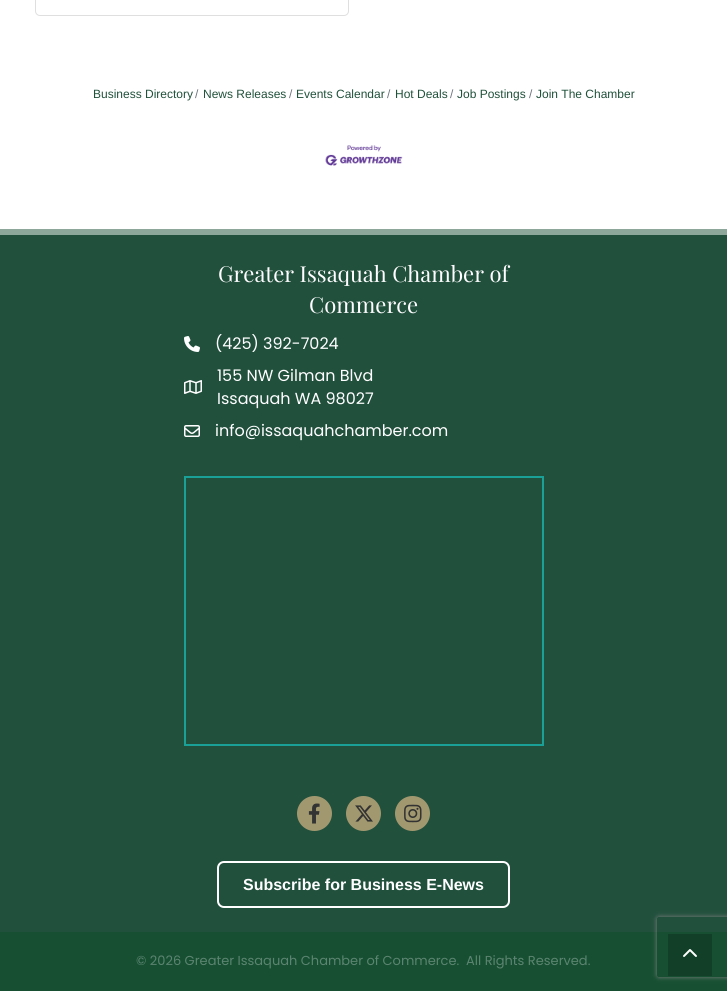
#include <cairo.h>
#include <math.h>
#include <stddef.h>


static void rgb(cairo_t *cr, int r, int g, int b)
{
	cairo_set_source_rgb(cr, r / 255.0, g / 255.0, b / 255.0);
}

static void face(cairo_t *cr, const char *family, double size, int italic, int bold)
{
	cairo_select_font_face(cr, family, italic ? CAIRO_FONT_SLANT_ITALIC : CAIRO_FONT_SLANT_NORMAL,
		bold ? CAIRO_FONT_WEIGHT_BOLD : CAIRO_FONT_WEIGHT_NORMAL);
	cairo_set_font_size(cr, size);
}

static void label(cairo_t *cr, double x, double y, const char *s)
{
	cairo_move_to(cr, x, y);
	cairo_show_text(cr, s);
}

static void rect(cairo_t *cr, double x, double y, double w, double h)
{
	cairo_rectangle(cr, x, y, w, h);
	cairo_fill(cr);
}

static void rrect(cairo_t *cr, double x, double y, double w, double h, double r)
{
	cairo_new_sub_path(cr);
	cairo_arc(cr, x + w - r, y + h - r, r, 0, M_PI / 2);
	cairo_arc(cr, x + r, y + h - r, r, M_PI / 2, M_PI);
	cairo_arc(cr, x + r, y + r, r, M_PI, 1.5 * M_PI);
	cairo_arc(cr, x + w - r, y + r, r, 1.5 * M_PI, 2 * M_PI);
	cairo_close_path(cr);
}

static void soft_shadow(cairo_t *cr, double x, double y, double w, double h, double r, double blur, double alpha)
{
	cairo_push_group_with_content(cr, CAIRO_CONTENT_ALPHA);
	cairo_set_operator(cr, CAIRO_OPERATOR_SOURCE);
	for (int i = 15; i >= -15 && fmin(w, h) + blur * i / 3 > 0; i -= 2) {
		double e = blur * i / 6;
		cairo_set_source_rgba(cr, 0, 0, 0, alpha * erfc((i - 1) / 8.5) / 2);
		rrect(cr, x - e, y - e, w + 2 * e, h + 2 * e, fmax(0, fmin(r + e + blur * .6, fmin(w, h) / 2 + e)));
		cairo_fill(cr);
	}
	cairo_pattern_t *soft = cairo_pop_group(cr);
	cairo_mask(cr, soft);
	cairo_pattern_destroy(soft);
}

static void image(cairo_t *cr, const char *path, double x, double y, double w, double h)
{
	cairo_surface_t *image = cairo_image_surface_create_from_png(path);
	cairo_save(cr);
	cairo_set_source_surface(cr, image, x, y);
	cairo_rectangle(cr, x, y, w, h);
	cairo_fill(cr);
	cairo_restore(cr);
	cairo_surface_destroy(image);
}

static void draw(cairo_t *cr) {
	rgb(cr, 255, 255, 255);
	cairo_paint(cr);
	rrect(cr, 35.5, -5.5, 313, 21, 4.5);
	rgb(cr, 223, 223, 223);
	cairo_set_line_width(cr, 1);
	cairo_stroke(cr);
	face(cr, "Liberation Sans", 12, 0, 0);
	rgb(cr, 32, 81, 59);
	label(cr, 93, 98, "Business Directory");
	rgb(cr, 108, 117, 125);
	label(cr, 195, 98, "/");
	rgb(cr, 32, 81, 59);
	label(cr, 203, 98, "News Releases");
	rgb(cr, 108, 117, 125);
	label(cr, 289, 98, "/");
	rgb(cr, 32, 81, 59);
	label(cr, 296, 98, "Events Calendar");
	rgb(cr, 108, 117, 125);
	label(cr, 387, 98, "/");
	rgb(cr, 32, 81, 59);
	label(cr, 395, 98, "Hot Deals");
	rgb(cr, 108, 117, 125);
	label(cr, 450, 98, "/");
	rgb(cr, 32, 81, 59);
	label(cr, 457, 98, "Job Postings");
	rgb(cr, 108, 117, 125);
	label(cr, 529, 98, "/");
	rgb(cr, 32, 81, 59);
	label(cr, 536, 98, "Join The Chamber");
	image(cr, "image0.png", 325, 145, 78, 21);
	rgb(cr, 33, 80, 61);
	rect(cr, 0, 235, 727, 697);
	rgb(cr, 142, 167, 155);
	rect(cr, 0, 229, 727, 6);
	face(cr, "Playfair Display", 22, 0, 0);
	rgb(cr, 255, 255, 255);
	label(cr, 218, 282, "Greater Issaquah Chamber of");
	label(cr, 309, 313, "Commerce");
	image(cr, "image1.png", 184, 336, 16, 16);
	face(cr, "Poppins", 16, 0, 0);
	label(cr, 215, 349, "(425) 392-7024");
	image(cr, "image2.png", 184, 380, 18, 14);
	label(cr, 217, 381, "155 NW Gilman Blvd");
	label(cr, 217, 404, "Issaquah WA 98027");
	image(cr, "image3.png", 184, 425, 16, 12);
	label(cr, 215, 436, "info@issaquahchamber.com");
	cairo_rectangle(cr, 185, 477, 358, 268);
	rgb(cr, 27, 160, 152);
	cairo_set_line_width(cr, 2);
	cairo_stroke(cr);
	rgb(cr, 162, 152, 111);
	cairo_arc(cr, 314.5, 813.5, 17.5, 0, 2 * M_PI);
	cairo_fill(cr);
	image(cr, "image4.png", 308, 803, 12, 21);
	cairo_arc(cr, 363.5, 813.5, 17.5, 0, 2 * M_PI);
	cairo_fill(cr);
	image(cr, "image5.png", 355, 805, 18, 17);
	cairo_arc(cr, 412.5, 813.5, 17.5, 0, 2 * M_PI);
	cairo_fill(cr);
	image(cr, "image6.png", 404, 804, 18, 19);
	rrect(cr, 218, 862, 291, 45, 6);
	rgb(cr, 255, 255, 255);
	cairo_stroke(cr);
	face(cr, "Liberation Sans", 16, 0, 1);
	label(cr, 243, 890, "Subscribe for Business E-News");
	rgb(cr, 22, 79, 50);
	rect(cr, 0, 932, 727, 59);
	face(cr, "Poppins", 13, 0, 0);
	rgb(cr, 92, 132, 112);
	label(cr, 136, 965, "© 2026 Greater Issaquah Chamber of Commerce.");
	label(cr, 466, 965, "All Rights Reserved.");
	cairo_save(cr);
	cairo_set_fill_rule(cr, CAIRO_FILL_RULE_EVEN_ODD);
	cairo_new_path(cr);
	cairo_move_to(cr, 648, 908);
	cairo_line_to(cr, 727, 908);
	cairo_line_to(cr, 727, 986);
	cairo_line_to(cr, 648, 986);
	cairo_close_path(cr);
	cairo_move_to(cr, 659, 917);
	cairo_line_to(cr, 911, 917);
	cairo_curve_to(cr, 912, 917, 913, 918, 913, 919);
	cairo_line_to(cr, 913, 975);
	cairo_curve_to(cr, 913, 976, 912, 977, 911, 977);
	cairo_line_to(cr, 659, 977);
	cairo_curve_to(cr, 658, 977, 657, 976, 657, 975);
	cairo_line_to(cr, 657, 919);
	cairo_curve_to(cr, 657, 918, 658, 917, 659, 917);
	cairo_close_path(cr);
	cairo_clip(cr);
	rgb(cr, 128, 128, 128);
	soft_shadow(cr, 657, 917, 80, 60, 2, 2.5, 1);
	cairo_restore(cr);
	rgb(cr, 18, 63, 40);
	rect(cr, 668, 934, 44, 42);
	image(cr, "image7.png", 683, 949, 14, 8);
}

int main(void) {
	cairo_surface_t *surface = cairo_image_surface_create(CAIRO_FORMAT_RGB24, 727, 991);
	cairo_t *cr = cairo_create(surface);
	cairo_font_options_t *options = cairo_font_options_create();
	cairo_font_options_set_hint_metrics(options, CAIRO_HINT_METRICS_OFF);
	cairo_font_options_set_hint_style(options, CAIRO_HINT_STYLE_NONE);
	cairo_set_font_options(cr, options);
	cairo_set_miter_limit(cr, 4);
	draw(cr);
	cairo_surface_write_to_png(surface, "render.png");
	cairo_font_options_destroy(options);
	cairo_destroy(cr);
	cairo_surface_destroy(surface);
	return 0;
}
